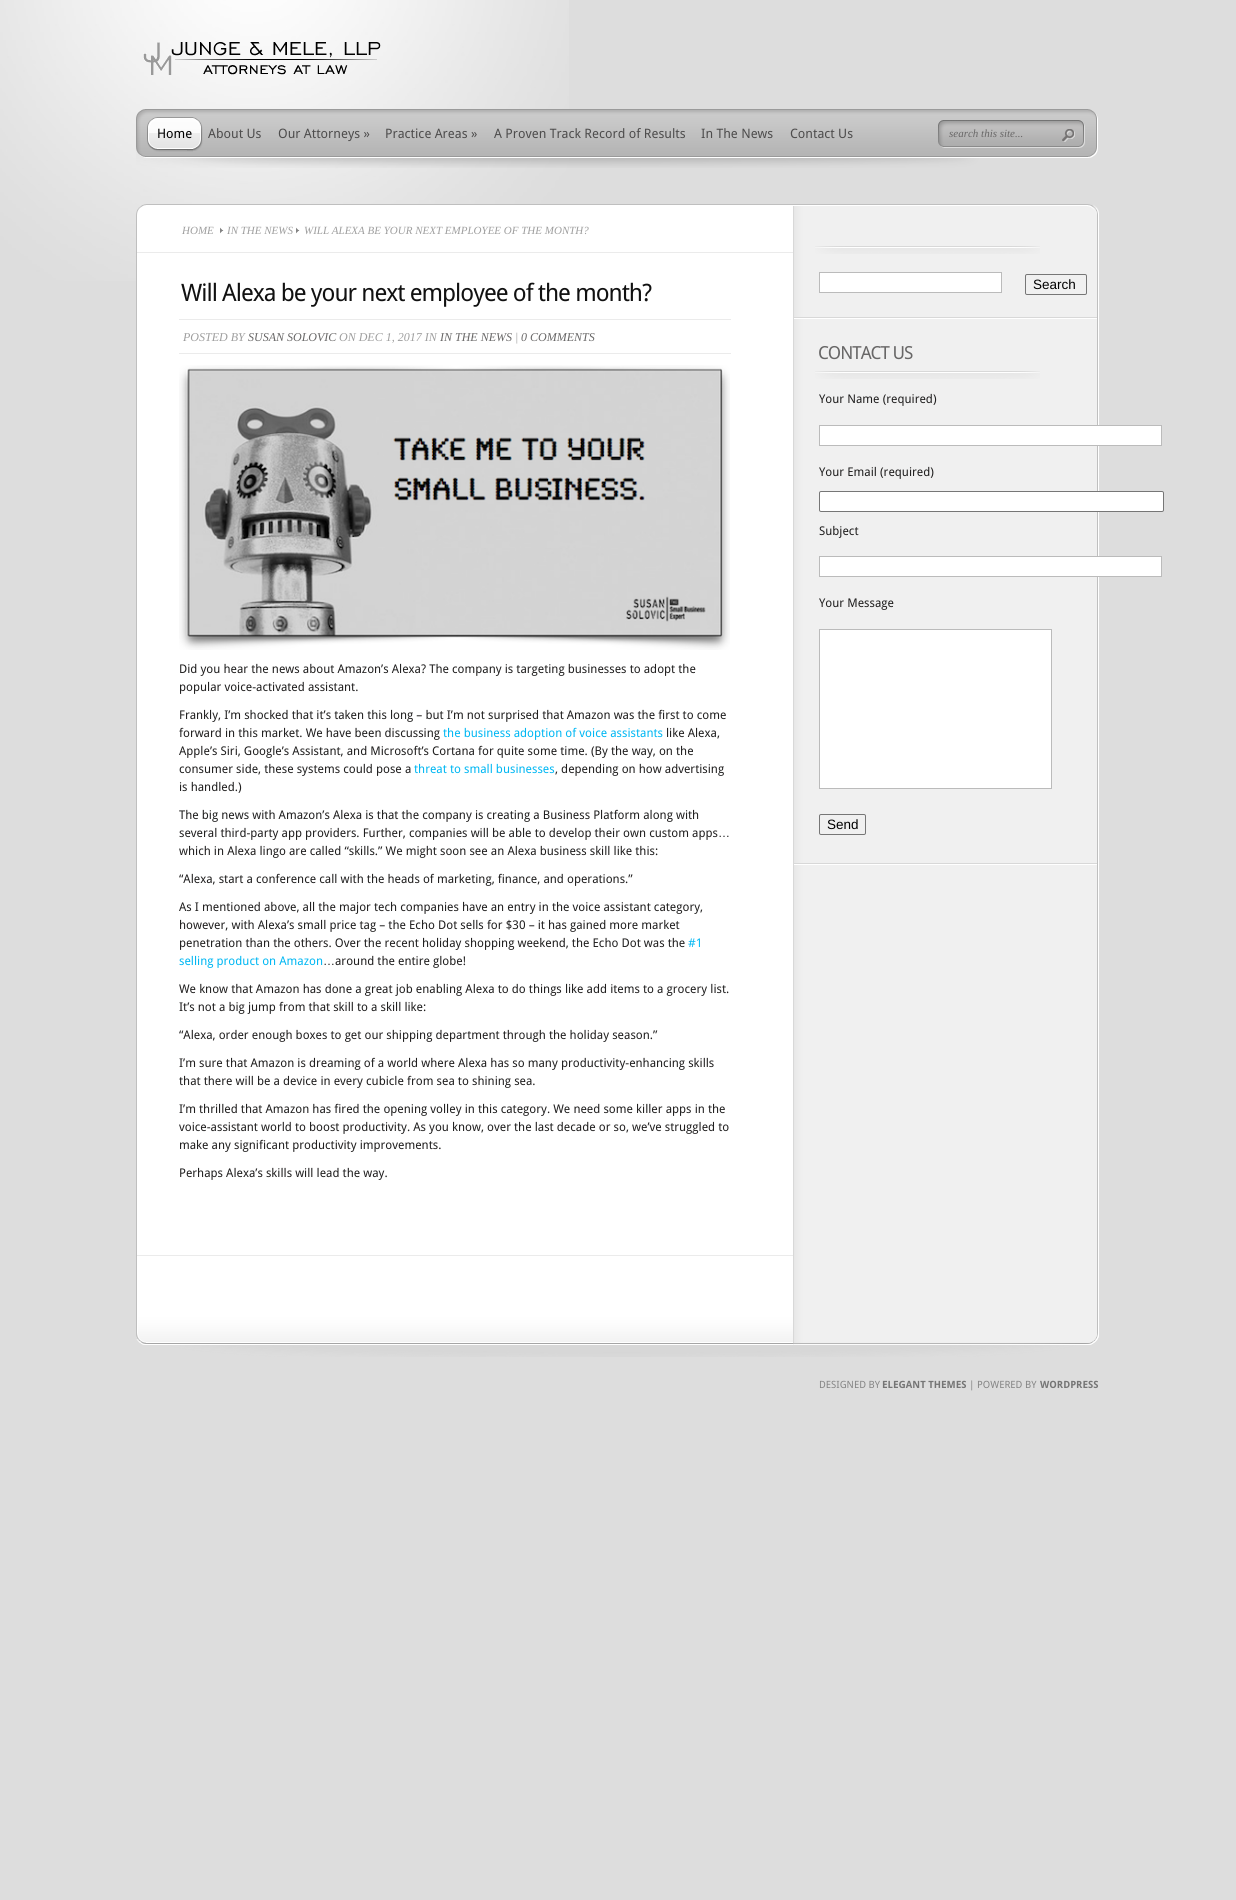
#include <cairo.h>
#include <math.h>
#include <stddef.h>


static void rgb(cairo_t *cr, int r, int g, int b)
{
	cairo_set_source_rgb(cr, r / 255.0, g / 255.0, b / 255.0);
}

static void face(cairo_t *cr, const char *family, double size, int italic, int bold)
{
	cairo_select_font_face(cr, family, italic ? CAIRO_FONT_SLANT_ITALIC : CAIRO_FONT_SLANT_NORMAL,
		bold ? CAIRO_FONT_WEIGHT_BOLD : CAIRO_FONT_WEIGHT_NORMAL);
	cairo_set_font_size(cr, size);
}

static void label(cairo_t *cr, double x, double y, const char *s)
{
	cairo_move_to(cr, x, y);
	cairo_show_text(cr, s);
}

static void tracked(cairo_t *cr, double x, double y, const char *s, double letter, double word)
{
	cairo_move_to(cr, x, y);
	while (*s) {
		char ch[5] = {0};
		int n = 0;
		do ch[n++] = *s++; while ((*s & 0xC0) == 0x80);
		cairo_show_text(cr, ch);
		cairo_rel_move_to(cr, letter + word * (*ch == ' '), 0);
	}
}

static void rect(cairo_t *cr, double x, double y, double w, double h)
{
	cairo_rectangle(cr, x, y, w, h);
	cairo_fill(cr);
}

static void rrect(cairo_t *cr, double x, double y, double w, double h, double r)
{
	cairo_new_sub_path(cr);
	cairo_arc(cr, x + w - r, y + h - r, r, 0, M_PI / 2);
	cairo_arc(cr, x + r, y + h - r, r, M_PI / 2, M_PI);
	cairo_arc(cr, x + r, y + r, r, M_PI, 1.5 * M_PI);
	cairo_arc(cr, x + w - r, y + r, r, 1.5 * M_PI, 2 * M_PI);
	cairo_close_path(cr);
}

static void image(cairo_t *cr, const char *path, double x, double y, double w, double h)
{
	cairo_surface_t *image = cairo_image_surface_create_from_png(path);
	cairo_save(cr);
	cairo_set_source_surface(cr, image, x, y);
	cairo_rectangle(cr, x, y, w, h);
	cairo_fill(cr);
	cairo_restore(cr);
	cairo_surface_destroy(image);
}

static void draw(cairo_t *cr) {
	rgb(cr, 221, 221, 221);
	cairo_paint(cr);
	image(cr, "image0.png", 0, 0, 569, 281);
	image(cr, "image1.png", 143, 42, 238, 33);
	image(cr, "image2.png", 136, 109, 962, 59);
	image(cr, "image3.png", 187, 117, 16, 34);
	image(cr, "image4.png", 147, 117, 46, 35);
	face(cr, "Droid Sans", 13, 0, 0);
	rgb(cr, 0, 0, 0);
	label(cr, 157, 138, "Home");
	rgb(cr, 78, 77, 77);
	label(cr, 208, 138, "About Us");
	label(cr, 278, 138, "Our Attorneys »");
	label(cr, 385, 138, "Practice Areas »");
	label(cr, 494, 138, "A Proven Track Record of Results");
	label(cr, 701, 138, "In The News");
	label(cr, 790, 138, "Contact Us");
	image(cr, "image5.png", 938, 120, 147, 28);
	face(cr, "Liberation Serif", 11, 1, 0);
	rgb(cr, 104, 103, 103);
	label(cr, 949, 137, "search this site...");
	image(cr, "image6.png", 1062, 129, 13, 13);
	image(cr, "image7.png", 136, 204, 963, 16);
	image(cr, "image8.png", 136, 220, 963, 1091);
	rgb(cr, 235, 235, 235);
	rect(cr, 137, 252, 656, 1);
	rgb(cr, 158, 158, 158);
	label(cr, 182, 234, "HOME");
	image(cr, "image9.png", 220, 227, 4, 7);
	label(cr, 227, 234, "IN THE NEWS");
	image(cr, "image9.png", 296, 227, 4, 7);
	label(cr, 304, 234, "WILL ALEXA BE YOUR NEXT EMPLOYEE OF THE MONTH?");
	face(cr, "Droid Sans", 24, 0, 0);
	rgb(cr, 17, 17, 17);
	tracked(cr, 181, 301, "Will Alexa be your next employee of the month?", -1, 0);
	rgb(cr, 235, 235, 235);
	rect(cr, 179, 319, 552, 1);
	rect(cr, 179, 353, 552, 1);
	face(cr, "Liberation Serif", 12, 1, 0);
	rgb(cr, 158, 158, 158);
	label(cr, 183, 341, "POSTED BY");
	rgb(cr, 104, 103, 103);
	label(cr, 248, 341, "SUSAN SOLOVIC");
	rgb(cr, 158, 158, 158);
	label(cr, 339, 341, "ON DEC 1, 2017 IN");
	rgb(cr, 104, 103, 103);
	label(cr, 440, 341, "IN THE NEWS");
	rgb(cr, 158, 158, 158);
	label(cr, 515, 341, "|");
	rgb(cr, 104, 103, 103);
	label(cr, 521, 341, "0 COMMENTS");
	image(cr, "image10.png", 179, 365, 551, 285);
	face(cr, "Droid Sans", 12, 0, 0);
	rgb(cr, 32, 31, 31);
	label(cr, 179, 673, "Did you hear the news about Amazon’s Alexa? The company is targeting businesses to adopt the");
	label(cr, 179, 691, "popular voice-activated assistant.");
	label(cr, 179, 719, "Frankly, I’m shocked that it’s taken this long – but I’m not surprised that Amazon was the first to come");
	label(cr, 179, 737, "forward in this market. We have been discussing");
	rgb(cr, 0, 183, 243);
	label(cr, 443, 737, "the business adoption of voice assistants");
	rgb(cr, 32, 31, 31);
	label(cr, 666, 737, "like Alexa,");
	label(cr, 179, 755, "Apple’s Siri, Google’s Assistant, and Microsoft’s Cortana for quite some time. (By the way, on the");
	label(cr, 179, 773, "consumer side, these systems could pose a");
	rgb(cr, 0, 183, 243);
	label(cr, 414, 773, "threat to small businesses");
	rgb(cr, 32, 31, 31);
	label(cr, 555, 773, ", depending on how advertising");
	label(cr, 179, 791, "is handled.)");
	label(cr, 179, 819, "The big news with Amazon’s Alexa is that the company is creating a Business Platform along with");
	label(cr, 179, 837, "several third-party app providers. Further, companies will be able to develop their own custom apps");
	face(cr, "Liberation Sans", 12, 0, 0);
	label(cr, 718, 837, "…");
	face(cr, "Droid Sans", 12, 0, 0);
	label(cr, 179, 855, "which in Alexa lingo are called “skills.” We might soon see an Alexa business skill like this:");
	label(cr, 179, 883, "“Alexa, start a conference call with the heads of marketing, finance, and operations.”");
	label(cr, 179, 911, "As I mentioned above, all the major tech companies have an entry in the voice assistant category,");
	label(cr, 179, 929, "however, with Alexa’s small price tag – the Echo Dot sells for $30 – it has gained more market");
	label(cr, 179, 947, "penetration than the others. Over the recent holiday shopping weekend, the Echo Dot was the");
	rgb(cr, 0, 183, 243);
	label(cr, 688, 947, "#1");
	label(cr, 179, 965, "selling product on Amazon");
	face(cr, "Liberation Sans", 12, 0, 0);
	rgb(cr, 32, 31, 31);
	label(cr, 323, 965, "…");
	face(cr, "Droid Sans", 12, 0, 0);
	label(cr, 335, 965, "around the entire globe!");
	label(cr, 179, 993, "We know that Amazon has done a great job enabling Alexa to do things like add items to a grocery list.");
	label(cr, 179, 1011, "It’s not a big jump from that skill to a skill like:");
	label(cr, 179, 1039, "“Alexa, order enough boxes to get our shipping department through the holiday season.”");
	label(cr, 179, 1067, "I’m sure that Amazon is dreaming of a world where Alexa has so many productivity-enhancing skills");
	label(cr, 179, 1085, "that there will be a device in every cubicle from sea to shining sea.");
	label(cr, 179, 1113, "I’m thrilled that Amazon has fired the opening volley in this category. We need some killer apps in the");
	label(cr, 179, 1131, "voice-assistant world to boost productivity. As you know, over the last decade or so, we’ve struggled to");
	label(cr, 179, 1149, "make any significant productivity improvements.");
	label(cr, 179, 1177, "Perhaps Alexa’s skills will lead the way.");
	rgb(cr, 235, 235, 235);
	rect(cr, 137, 1255, 656, 1);
	image(cr, "image11.png", 794, 317, 303, 2);
	image(cr, "image12.png", 815, 246, 225, 8);
	rgb(cr, 255, 255, 255);
	cairo_rectangle(cr, 819.5, 272.5, 182, 20);
	cairo_fill_preserve(cr);
	rgb(cr, 187, 187, 187);
	cairo_set_line_width(cr, 1);
	cairo_stroke(cr);
	rrect(cr, 1025.5, 274.5, 61, 20, 1.5);
	rgb(cr, 118, 118, 118);
	cairo_stroke(cr);
	face(cr, "Liberation Sans", 13.5, 0, 0);
	rgb(cr, 0, 0, 0);
	label(cr, 1033, 289, "Search");
	image(cr, "image11.png", 794, 863, 303, 2);
	image(cr, "image12.png", 815, 371, 225, 8);
	face(cr, "Droid Sans", 18, 0, 0);
	rgb(cr, 104, 103, 103);
	tracked(cr, 818, 359, "CONTACT US", -1, 0);
	face(cr, "Droid Sans", 12, 0, 0);
	rgb(cr, 32, 31, 31);
	label(cr, 819, 403, "Your Name (required)");
	rgb(cr, 255, 255, 255);
	cairo_rectangle(cr, 819.5, 425.5, 342, 20);
	cairo_fill_preserve(cr);
	rgb(cr, 187, 187, 187);
	cairo_stroke(cr);
	rgb(cr, 32, 31, 31);
	label(cr, 819, 476, "Your Email (required)");
	rgb(cr, 255, 255, 255);
	rrect(cr, 819.5, 491.5, 344, 20, 1.5);
	cairo_fill_preserve(cr);
	rgb(cr, 118, 118, 118);
	cairo_stroke(cr);
	rgb(cr, 32, 31, 31);
	label(cr, 819, 535, "Subject");
	rgb(cr, 255, 255, 255);
	cairo_rectangle(cr, 819.5, 556.5, 342, 20);
	cairo_fill_preserve(cr);
	rgb(cr, 187, 187, 187);
	cairo_stroke(cr);
	rgb(cr, 32, 31, 31);
	label(cr, 819, 607, "Your Message");
	rgb(cr, 255, 255, 255);
	cairo_rectangle(cr, 819.5, 629.5, 232, 159);
	cairo_fill_preserve(cr);
	rgb(cr, 187, 187, 187);
	cairo_stroke(cr);
	rrect(cr, 819.5, 814.5, 46, 20, 1.5);
	rgb(cr, 118, 118, 118);
	cairo_stroke(cr);
	face(cr, "Liberation Sans", 13.5, 0, 0);
	rgb(cr, 0, 0, 0);
	label(cr, 827, 829, "Send");
	image(cr, "image13.png", 136, 1311, 963, 46);
	face(cr, "Droid Sans", 10, 0, 0);
	rgb(cr, 133, 133, 133);
	label(cr, 819, 1388, "DESIGNED BY");
	face(cr, "Droid Sans", 10, 0, 1);
	rgb(cr, 117, 117, 117);
	label(cr, 882, 1388, "ELEGANT THEMES");
	face(cr, "Droid Sans", 10, 0, 0);
	rgb(cr, 133, 133, 133);
	label(cr, 969, 1388, "| POWERED BY");
	face(cr, "Droid Sans", 10, 0, 1);
	rgb(cr, 117, 117, 117);
	label(cr, 1040, 1388, "WORDPRESS");
}

int main(void) {
	cairo_surface_t *surface = cairo_image_surface_create(CAIRO_FORMAT_RGB24, 1236, 1900);
	cairo_t *cr = cairo_create(surface);
	cairo_font_options_t *options = cairo_font_options_create();
	cairo_font_options_set_hint_metrics(options, CAIRO_HINT_METRICS_OFF);
	cairo_font_options_set_hint_style(options, CAIRO_HINT_STYLE_NONE);
	cairo_set_font_options(cr, options);
	cairo_set_miter_limit(cr, 4);
	draw(cr);
	cairo_surface_write_to_png(surface, "render.png");
	cairo_font_options_destroy(options);
	cairo_destroy(cr);
	cairo_surface_destroy(surface);
	return 0;
}
